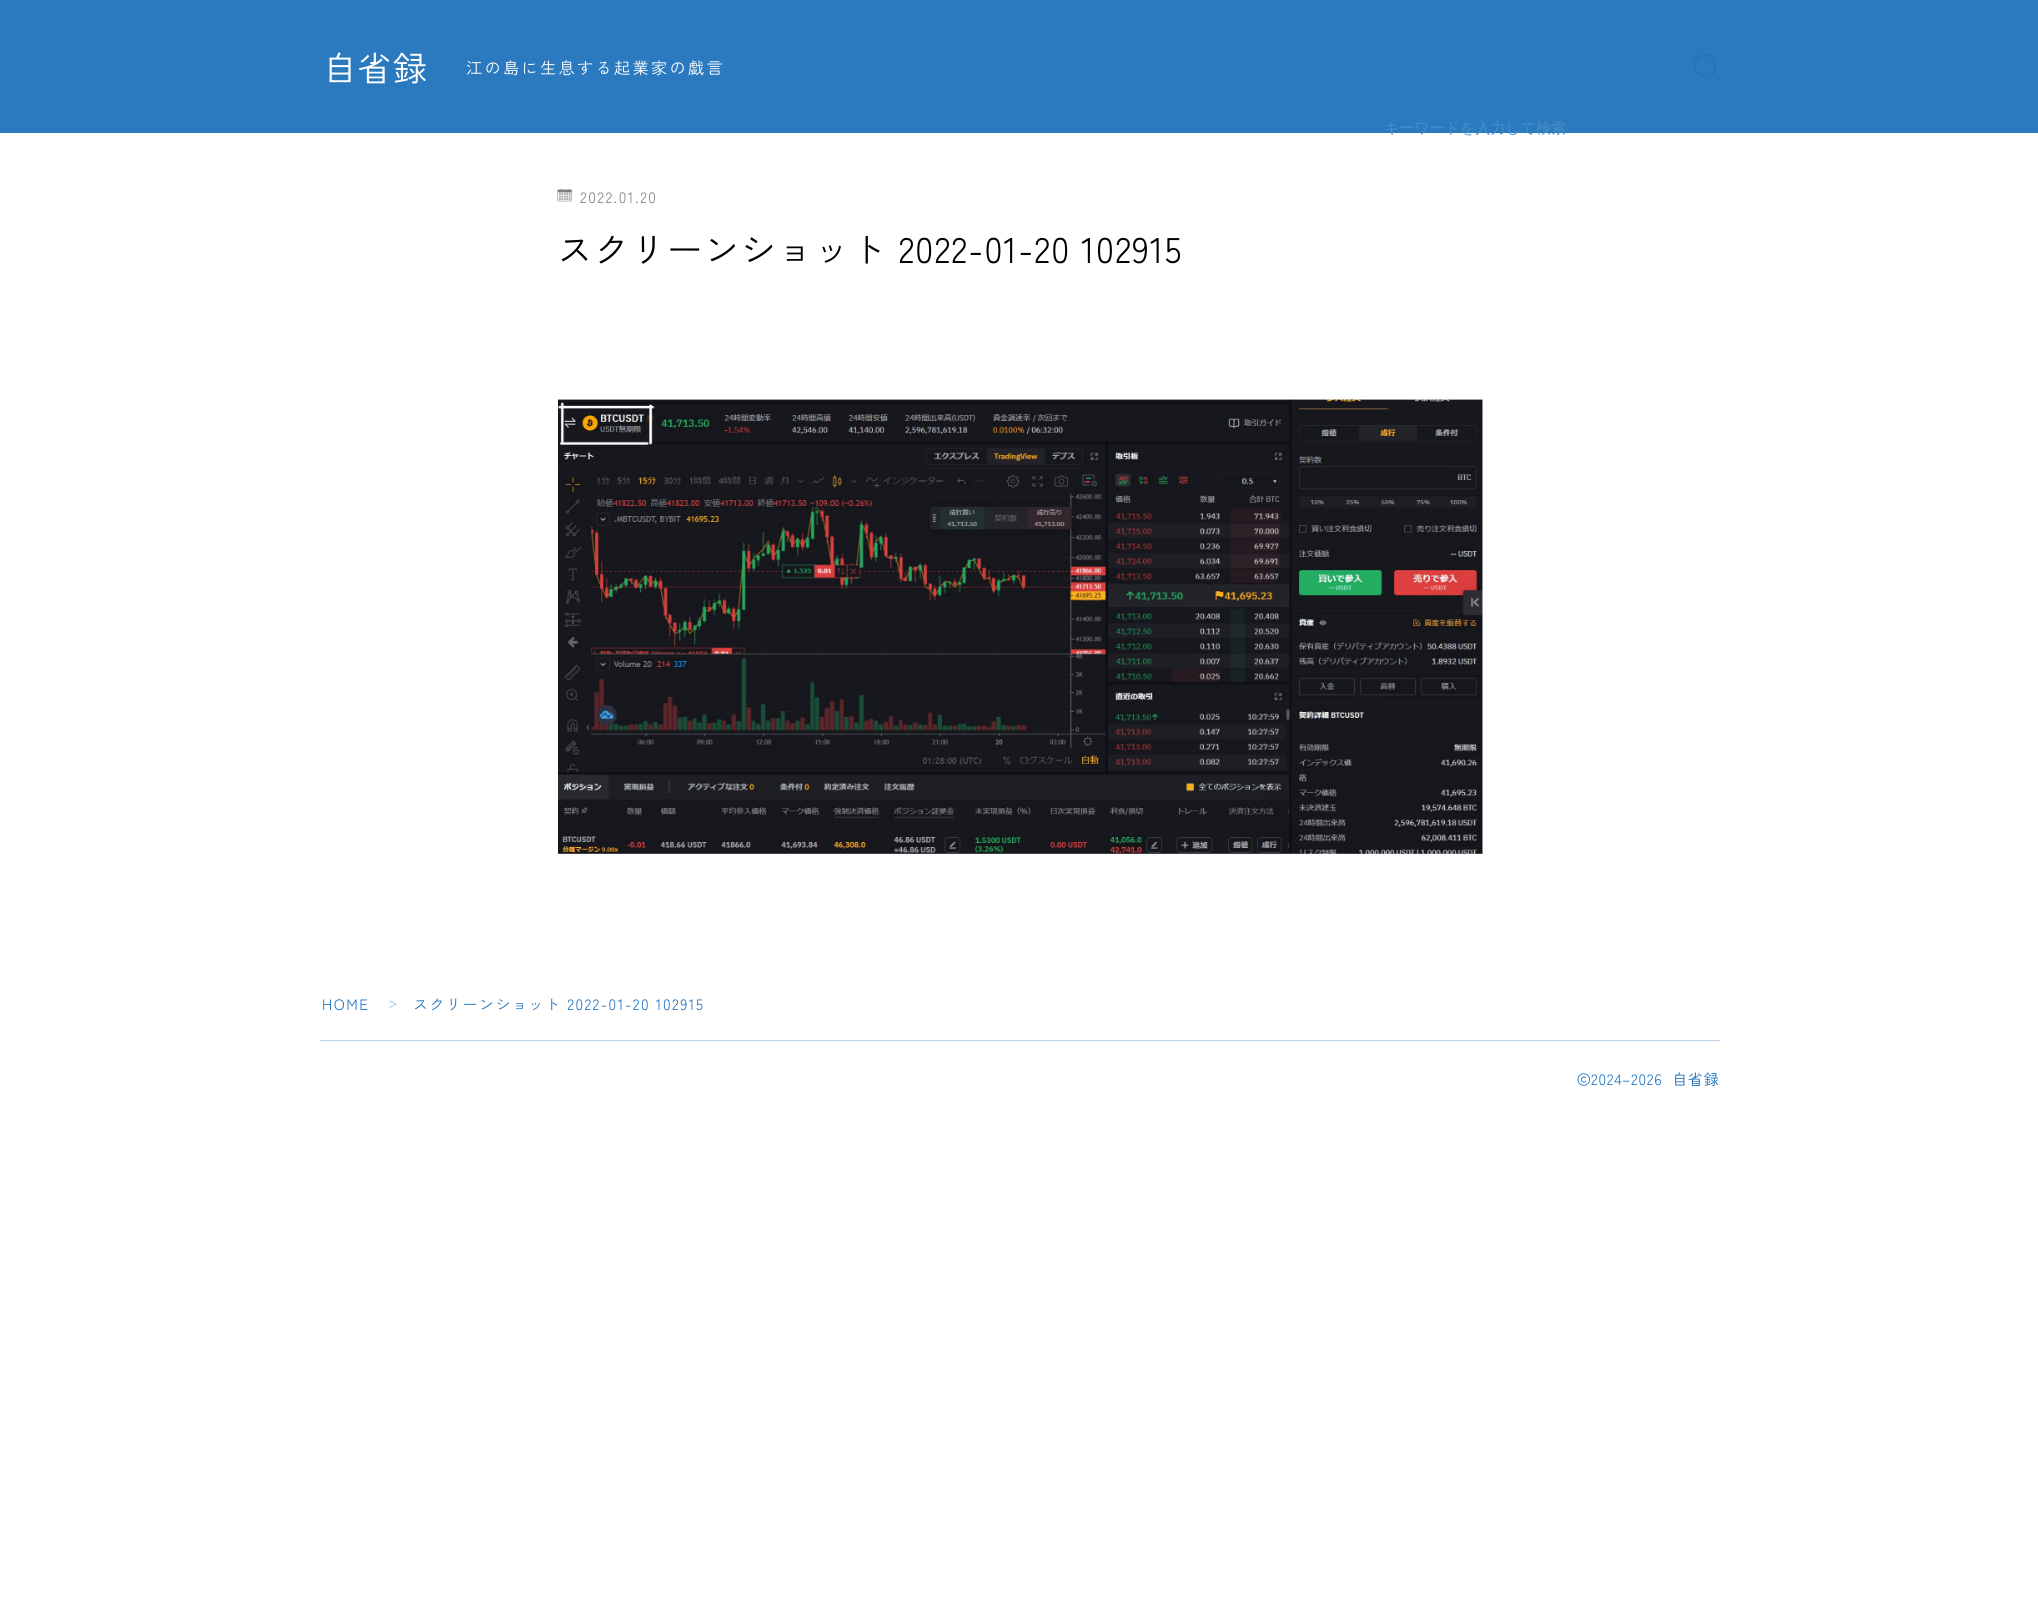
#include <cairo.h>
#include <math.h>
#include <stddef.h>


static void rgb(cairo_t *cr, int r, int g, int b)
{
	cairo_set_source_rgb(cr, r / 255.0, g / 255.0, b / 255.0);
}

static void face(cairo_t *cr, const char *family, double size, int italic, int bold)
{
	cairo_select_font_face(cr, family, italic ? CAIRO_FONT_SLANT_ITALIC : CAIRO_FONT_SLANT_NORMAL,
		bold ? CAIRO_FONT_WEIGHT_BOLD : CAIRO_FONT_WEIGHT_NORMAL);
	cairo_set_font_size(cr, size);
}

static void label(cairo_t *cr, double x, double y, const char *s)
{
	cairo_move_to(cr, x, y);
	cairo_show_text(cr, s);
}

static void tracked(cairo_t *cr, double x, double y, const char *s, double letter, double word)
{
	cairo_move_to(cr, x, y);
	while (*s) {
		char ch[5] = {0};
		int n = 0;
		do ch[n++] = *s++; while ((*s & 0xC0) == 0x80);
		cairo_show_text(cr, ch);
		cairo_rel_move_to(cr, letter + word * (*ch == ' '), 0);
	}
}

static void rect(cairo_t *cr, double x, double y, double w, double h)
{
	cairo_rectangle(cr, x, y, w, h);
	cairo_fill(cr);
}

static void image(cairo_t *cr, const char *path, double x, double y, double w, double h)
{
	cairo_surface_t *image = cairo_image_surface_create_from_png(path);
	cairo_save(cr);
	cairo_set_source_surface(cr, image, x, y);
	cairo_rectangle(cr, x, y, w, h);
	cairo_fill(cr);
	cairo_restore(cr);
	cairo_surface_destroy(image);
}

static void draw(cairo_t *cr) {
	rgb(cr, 255, 255, 255);
	cairo_paint(cr);
	rgb(cr, 43, 122, 191);
	rect(cr, 0, 0, 2038, 133);
	face(cr, "Zen Kaku Gothic New", 34, 0, 0);
	rgb(cr, 255, 255, 255);
	tracked(cr, 323, 81, "自省録", 1, 0);
	face(cr, "Zen Kaku Gothic New", 16.25, 0, 0);
	tracked(cr, 466, 74, "江の島に生息する起業家の戯言", 2.25, 0);
	image(cr, "image0.png", 1694, 54, 25, 25);
	face(cr, "WenQuanYi Zen Hei Medium", 15, 0, 0);
	rgb(cr, 73, 141, 200);
	label(cr, 1384, 133, "キーワードを入力して検索");
	image(cr, "image1.png", 557, 188, 15, 14);
	face(cr, "Zen Kaku Gothic New", 15, 0, 0);
	rgb(cr, 128, 128, 128);
	tracked(cr, 580, 203, "2022.01.20", 1.5, 0);
	face(cr, "Zen Kaku Gothic New", 35.6, 0, 0);
	rgb(cr, 0, 0, 0);
	tracked(cr, 557, 263, "スクリーンショット 2022-01-20 102915", 1.1, 0);
	image(cr, "image2.png", 558, 395, 925, 459);
	face(cr, "Zen Kaku Gothic New", 15, 0, 0);
	rgb(cr, 30, 115, 190);
	tracked(cr, 322, 1010, "HOME", 1.5, 0);
	face(cr, "Zen Kaku Gothic New", 10, 0, 0);
	rgb(cr, 98, 157, 210);
	tracked(cr, 388, 1008, "＞", 1, 0);
	face(cr, "Zen Kaku Gothic New", 15, 0, 0);
	rgb(cr, 30, 115, 190);
	tracked(cr, 413, 1010, "スクリーンショット 2022-01-20 102915", 1.5, 0);
	rgb(cr, 188, 213, 236);
	rect(cr, 320, 1040, 1400, 1);
	image(cr, "image3.png", 1577, 1073, 13, 13);
	rgb(cr, 30, 115, 190);
	tracked(cr, 1591, 1085, "2024–2026  自省録", 0.75, 0);
}

int main(void) {
	cairo_surface_t *surface = cairo_image_surface_create(CAIRO_FORMAT_RGB24, 2038, 1624);
	cairo_t *cr = cairo_create(surface);
	cairo_font_options_t *options = cairo_font_options_create();
	cairo_font_options_set_hint_metrics(options, CAIRO_HINT_METRICS_OFF);
	cairo_font_options_set_hint_style(options, CAIRO_HINT_STYLE_NONE);
	cairo_set_font_options(cr, options);
	cairo_set_miter_limit(cr, 4);
	draw(cr);
	cairo_surface_write_to_png(surface, "render.png");
	cairo_font_options_destroy(options);
	cairo_destroy(cr);
	cairo_surface_destroy(surface);
	return 0;
}
